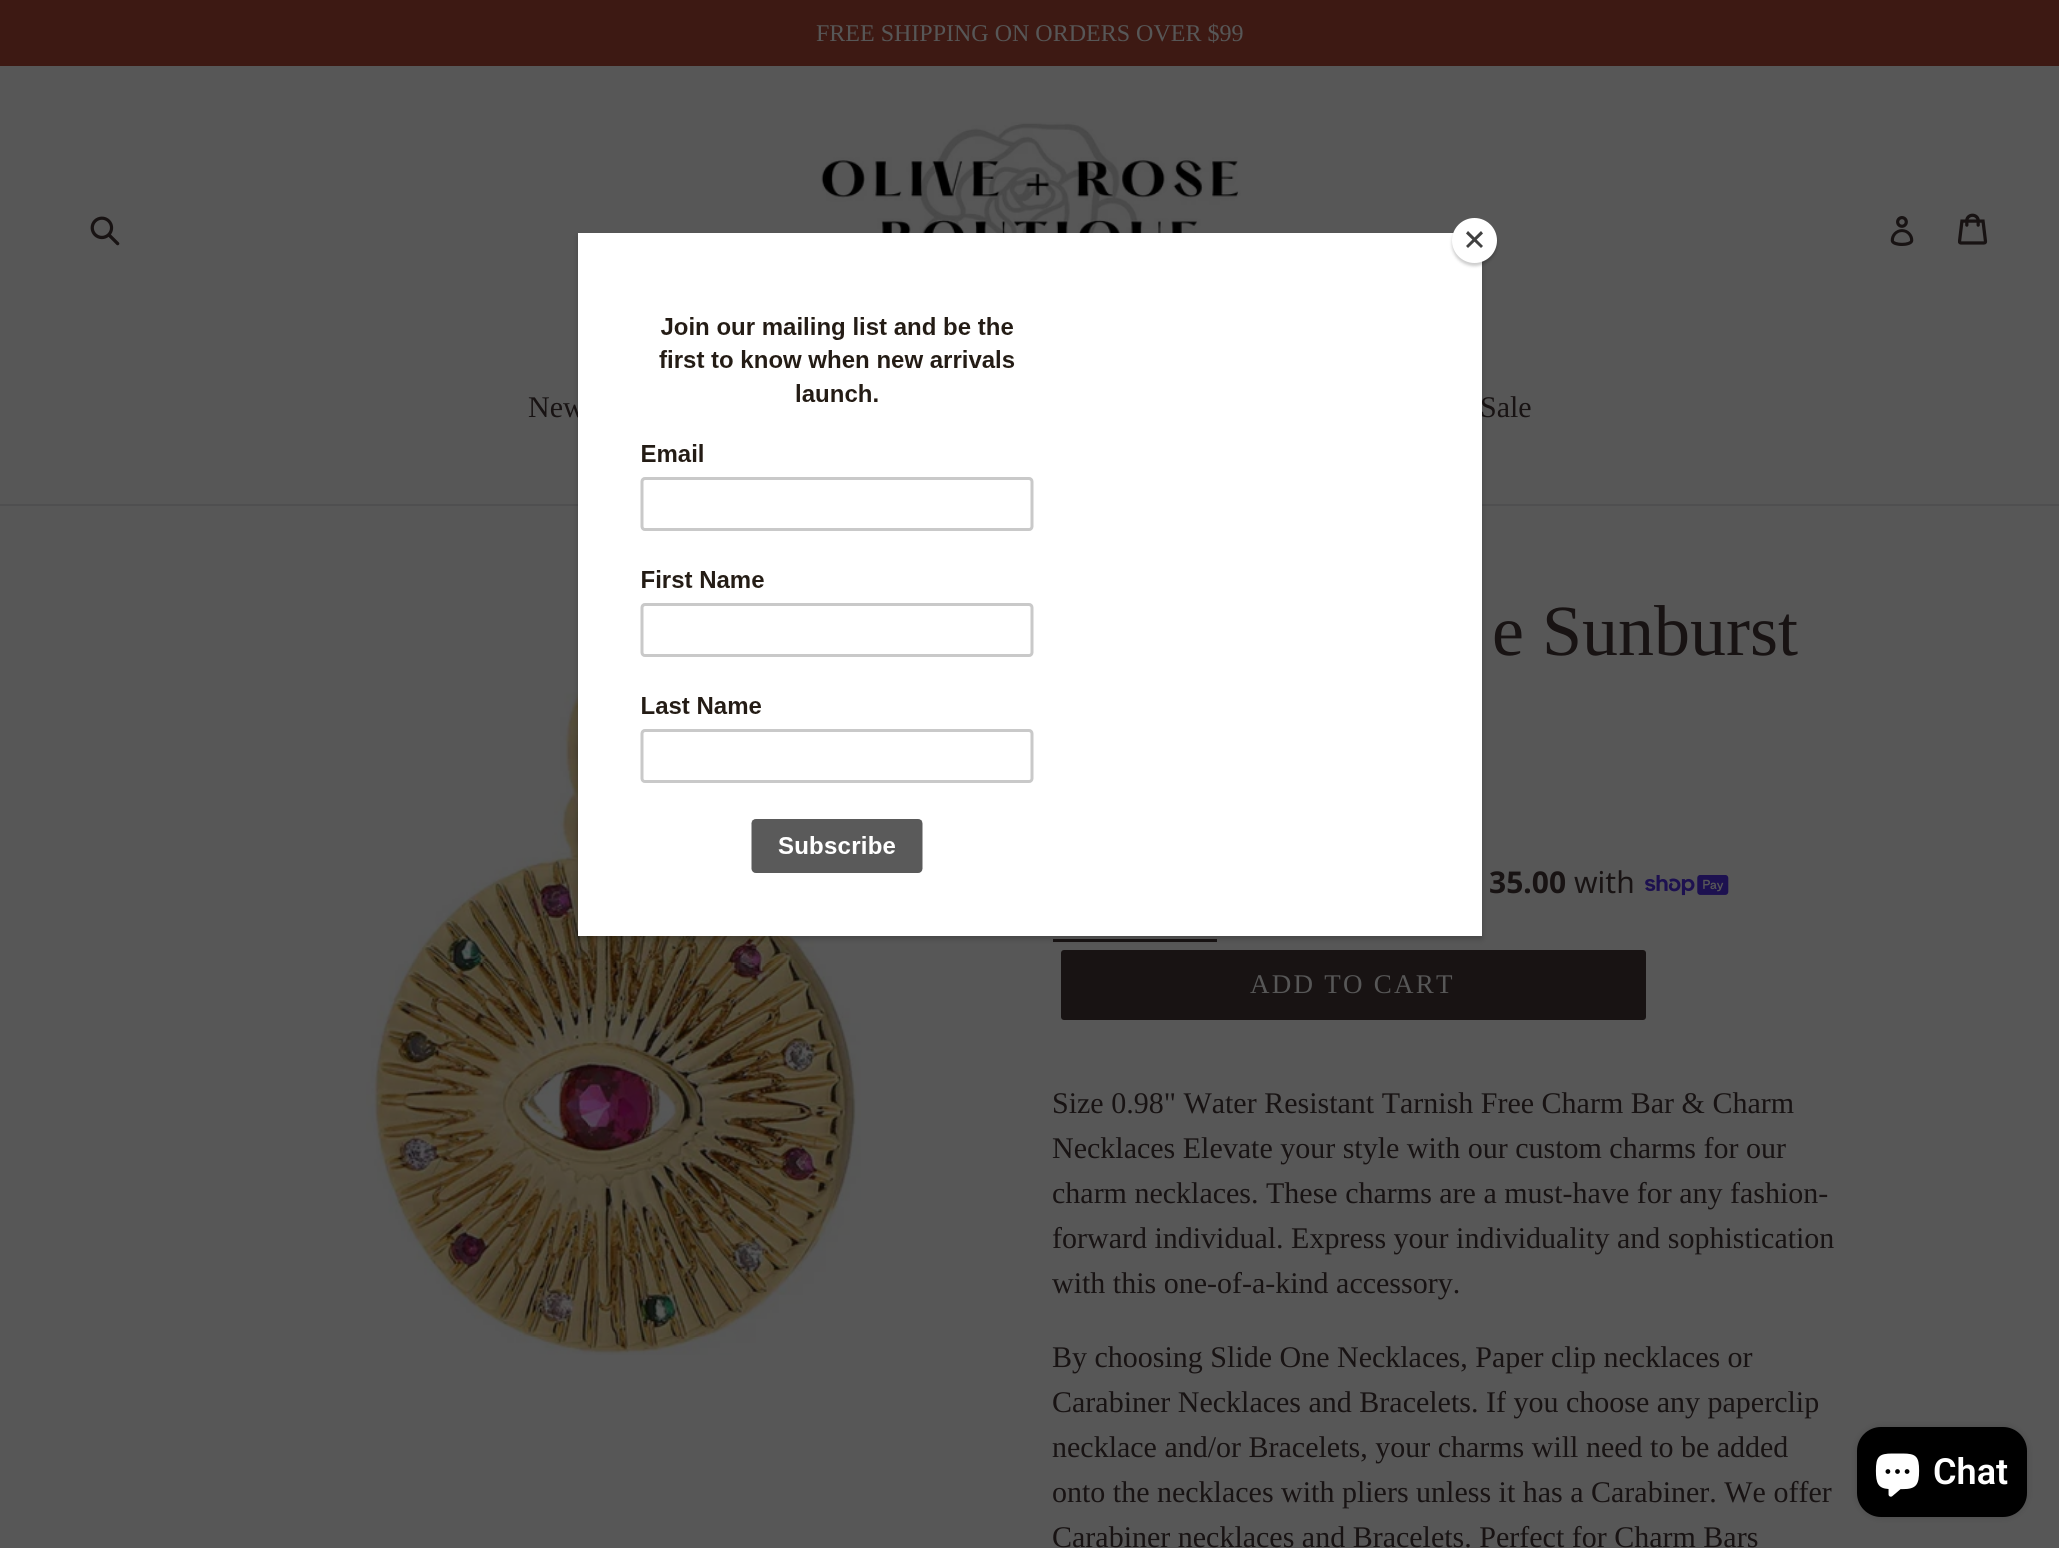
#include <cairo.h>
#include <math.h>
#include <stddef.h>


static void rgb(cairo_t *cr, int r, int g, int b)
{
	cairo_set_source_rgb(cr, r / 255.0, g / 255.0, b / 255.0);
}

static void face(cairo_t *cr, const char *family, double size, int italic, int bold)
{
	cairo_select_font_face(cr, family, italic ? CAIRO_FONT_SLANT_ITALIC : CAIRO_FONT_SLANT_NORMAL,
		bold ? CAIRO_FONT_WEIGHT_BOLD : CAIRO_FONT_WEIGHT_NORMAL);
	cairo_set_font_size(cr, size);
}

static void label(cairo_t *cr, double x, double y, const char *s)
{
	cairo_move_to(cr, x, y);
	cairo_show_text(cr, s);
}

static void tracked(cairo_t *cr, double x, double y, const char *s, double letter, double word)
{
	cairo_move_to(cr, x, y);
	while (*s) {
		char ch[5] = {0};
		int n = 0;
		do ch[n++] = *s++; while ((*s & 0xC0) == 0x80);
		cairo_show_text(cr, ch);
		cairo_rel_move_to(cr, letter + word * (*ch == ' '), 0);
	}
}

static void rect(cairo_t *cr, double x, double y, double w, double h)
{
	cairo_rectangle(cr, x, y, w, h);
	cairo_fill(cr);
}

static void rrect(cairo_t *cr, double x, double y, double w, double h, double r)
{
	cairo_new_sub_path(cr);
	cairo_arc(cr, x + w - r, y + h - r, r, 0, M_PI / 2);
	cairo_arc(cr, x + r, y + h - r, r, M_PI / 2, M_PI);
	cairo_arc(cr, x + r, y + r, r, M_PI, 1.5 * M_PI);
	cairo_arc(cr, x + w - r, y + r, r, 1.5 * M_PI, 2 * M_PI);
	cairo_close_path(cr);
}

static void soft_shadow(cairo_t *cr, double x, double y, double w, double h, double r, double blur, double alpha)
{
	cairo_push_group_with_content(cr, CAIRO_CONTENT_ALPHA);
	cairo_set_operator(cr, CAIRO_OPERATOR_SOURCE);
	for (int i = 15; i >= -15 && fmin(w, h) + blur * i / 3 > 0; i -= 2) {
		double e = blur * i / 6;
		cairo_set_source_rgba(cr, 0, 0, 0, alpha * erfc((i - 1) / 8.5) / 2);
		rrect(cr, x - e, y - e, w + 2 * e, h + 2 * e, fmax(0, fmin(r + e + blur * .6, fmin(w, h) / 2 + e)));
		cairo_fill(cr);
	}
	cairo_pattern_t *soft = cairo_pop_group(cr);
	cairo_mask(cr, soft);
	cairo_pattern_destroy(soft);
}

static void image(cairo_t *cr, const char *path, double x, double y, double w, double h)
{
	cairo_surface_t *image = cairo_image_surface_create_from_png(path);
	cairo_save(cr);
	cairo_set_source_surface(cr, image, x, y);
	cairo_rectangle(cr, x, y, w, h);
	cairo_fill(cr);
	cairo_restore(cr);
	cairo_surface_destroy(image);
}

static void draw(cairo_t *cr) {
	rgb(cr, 87, 87, 87);
	cairo_paint(cr);
	rgb(cr, 61, 25, 19);
	rect(cr, 0, 0, 2059, 66);
	face(cr, "Liberation Serif", 24, 0, 0);
	rgb(cr, 87, 87, 87);
	label(cr, 816, 41, "FREE SHIPPING ON ORDERS OVER $99");
	image(cr, "image0.png", 90, 216, 30, 30);
	image(cr, "image1.png", 821, 122, 420, 111);
	image(cr, "image2.png", 1890, 216, 24, 30);
	image(cr, "image3.png", 1958, 213, 30, 32);
	rgb(cr, 79, 79, 80);
	rect(cr, 0, 504, 2059, 2);
	face(cr, "Liberation Serif", 30, 0, 0);
	rgb(cr, 24, 19, 19);
	label(cr, 528, 417, "New");
	label(cr, 1480, 417, "Sale");
	image(cr, "image5.png", 366, 666, 495, 689);
	rect(cr, 1053, 939, 164, 3);
	rgb(cr, 0, 0, 0);
	soft_shadow(cr, 578, 236, 904, 703, 0, 3, 0.2);
	image(cr, "image4.png", 578, 233, 904, 703);
	soft_shadow(cr, 1452, 221, 45, 45, 22.5, 1.5, 0.2);
	rgb(cr, 255, 255, 255);
	cairo_arc(cr, 1474.5, 240.5, 22.5, 0, 2 * M_PI);
	cairo_fill(cr);
	rgb(cr, 65, 65, 65);
	cairo_new_path(cr);
	cairo_move_to(cr, 1481, 231);
	cairo_line_to(cr, 1483, 233.5);
	cairo_line_to(cr, 1468, 248);
	cairo_line_to(cr, 1466, 246);
	cairo_close_path(cr);
	cairo_fill(cr);
	cairo_new_path(cr);
	cairo_move_to(cr, 1466, 233.5);
	cairo_line_to(cr, 1468, 231);
	cairo_line_to(cr, 1483, 246);
	cairo_line_to(cr, 1481, 248);
	cairo_close_path(cr);
	cairo_fill(cr);
	face(cr, "Liberation Serif", 72, 0, 0);
	rgb(cr, 24, 19, 19);
	label(cr, 1492, 655, "e Sunburst");
	face(cr, "Noto Sans", 30, 0, 1);
	label(cr, 1489, 893, "35.00");
	face(cr, "Noto Sans", 30, 0, 0);
	label(cr, 1574, 893, "with");
	image(cr, "image6.png", 1645, 875, 84, 21);
	rrect(cr, 1061, 950, 585, 70, 3);
	cairo_fill(cr);
	face(cr, "Liberation Serif", 27, 0, 0);
	rgb(cr, 87, 87, 87);
	tracked(cr, 1250, 993, "ADD TO CART", 2.25, 0);
	face(cr, "Liberation Serif", 30, 0, 0);
	rgb(cr, 24, 19, 19);
	label(cr, 1052, 1113, "Size 0.98\" Water Resistant Tarnish Free Charm Bar & Charm");
	label(cr, 1052, 1158, "Necklaces Elevate your style with our custom charms for our");
	label(cr, 1052, 1203, "charm necklaces. These charms are a must-have for any fashion-");
	label(cr, 1052, 1248, "forward individual. Express your individuality and sophistication");
	label(cr, 1052, 1293, "with this one-of-a-kind accessory.");
	label(cr, 1052, 1367, "By choosing Slide One Necklaces, Paper clip necklaces or");
	label(cr, 1052, 1412, "Carabiner Necklaces and Bracelets. If you choose any paperclip");
	label(cr, 1052, 1457, "necklace and/or Bracelets, your charms will need to be added");
	label(cr, 1052, 1502, "onto the necklaces with pliers unless it has a Carabiner. We offer");
	label(cr, 1052, 1547, "Carabiner necklaces and Bracelets. Perfect for Charm Bars");
	rgb(cr, 0, 0, 0);
	soft_shadow(cr, 1857, 1427, 170, 90, 24, 4, 0.15);
	rgb(cr, 0, 0, 0);
	rrect(cr, 1857, 1427, 170, 90, 24);
	cairo_fill(cr);
	image(cr, "image7.png", 1875, 1453, 45, 44);
	face(cr, "Roboto SemiBold", 36, 0, 0);
	rgb(cr, 255, 255, 255);
	label(cr, 1933, 1484, "Chat");
}

int main(void) {
	cairo_surface_t *surface = cairo_image_surface_create(CAIRO_FORMAT_RGB24, 2059, 1548);
	cairo_t *cr = cairo_create(surface);
	cairo_font_options_t *options = cairo_font_options_create();
	cairo_font_options_set_hint_metrics(options, CAIRO_HINT_METRICS_OFF);
	cairo_font_options_set_hint_style(options, CAIRO_HINT_STYLE_NONE);
	cairo_set_font_options(cr, options);
	cairo_set_miter_limit(cr, 4);
	draw(cr);
	cairo_surface_write_to_png(surface, "render.png");
	cairo_font_options_destroy(options);
	cairo_destroy(cr);
	cairo_surface_destroy(surface);
	return 0;
}
